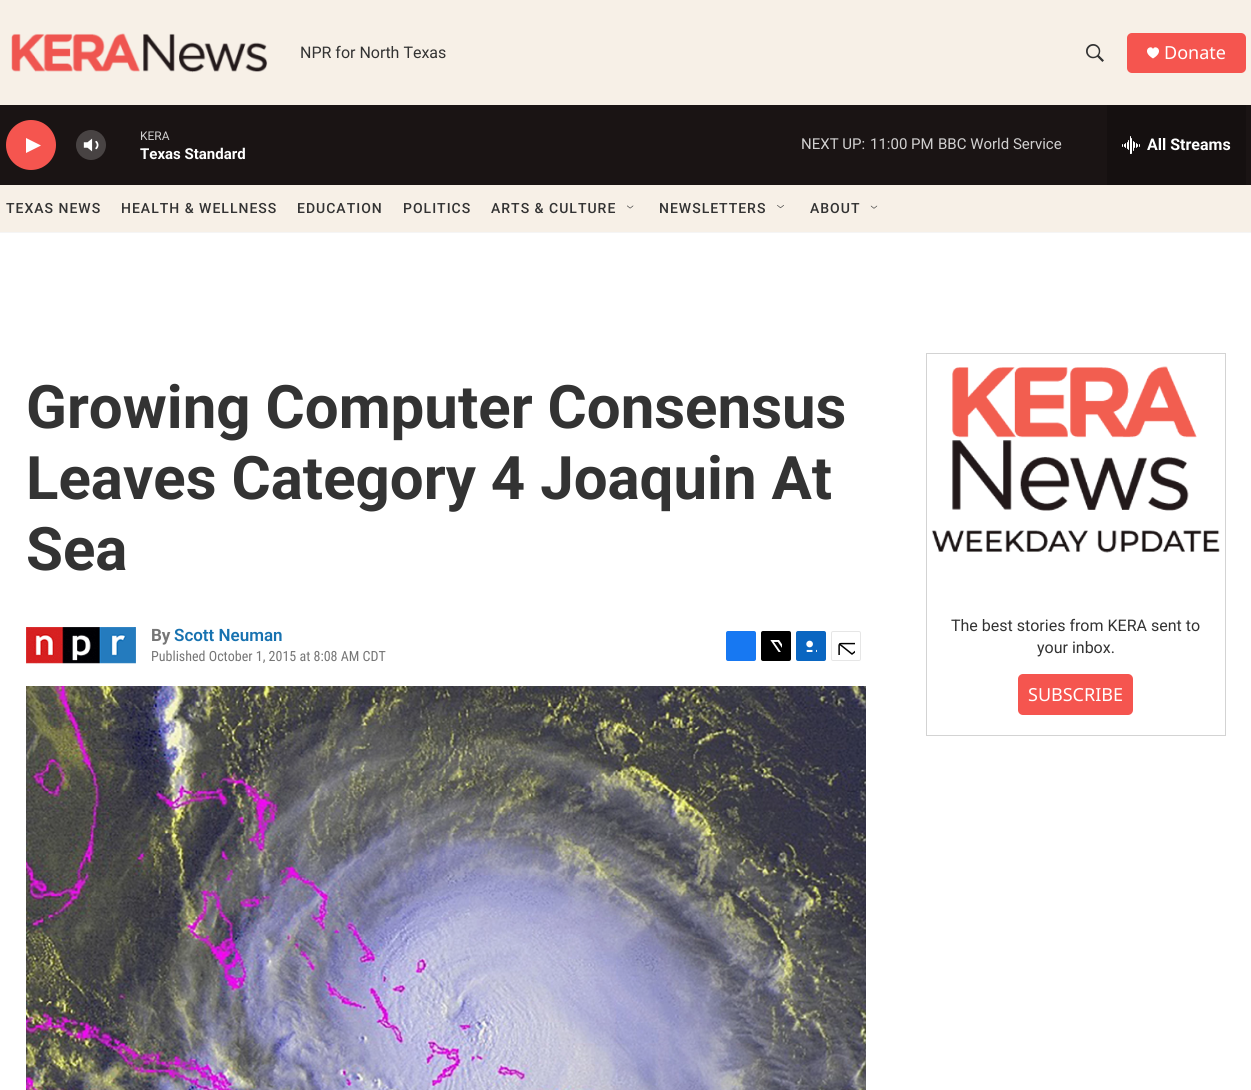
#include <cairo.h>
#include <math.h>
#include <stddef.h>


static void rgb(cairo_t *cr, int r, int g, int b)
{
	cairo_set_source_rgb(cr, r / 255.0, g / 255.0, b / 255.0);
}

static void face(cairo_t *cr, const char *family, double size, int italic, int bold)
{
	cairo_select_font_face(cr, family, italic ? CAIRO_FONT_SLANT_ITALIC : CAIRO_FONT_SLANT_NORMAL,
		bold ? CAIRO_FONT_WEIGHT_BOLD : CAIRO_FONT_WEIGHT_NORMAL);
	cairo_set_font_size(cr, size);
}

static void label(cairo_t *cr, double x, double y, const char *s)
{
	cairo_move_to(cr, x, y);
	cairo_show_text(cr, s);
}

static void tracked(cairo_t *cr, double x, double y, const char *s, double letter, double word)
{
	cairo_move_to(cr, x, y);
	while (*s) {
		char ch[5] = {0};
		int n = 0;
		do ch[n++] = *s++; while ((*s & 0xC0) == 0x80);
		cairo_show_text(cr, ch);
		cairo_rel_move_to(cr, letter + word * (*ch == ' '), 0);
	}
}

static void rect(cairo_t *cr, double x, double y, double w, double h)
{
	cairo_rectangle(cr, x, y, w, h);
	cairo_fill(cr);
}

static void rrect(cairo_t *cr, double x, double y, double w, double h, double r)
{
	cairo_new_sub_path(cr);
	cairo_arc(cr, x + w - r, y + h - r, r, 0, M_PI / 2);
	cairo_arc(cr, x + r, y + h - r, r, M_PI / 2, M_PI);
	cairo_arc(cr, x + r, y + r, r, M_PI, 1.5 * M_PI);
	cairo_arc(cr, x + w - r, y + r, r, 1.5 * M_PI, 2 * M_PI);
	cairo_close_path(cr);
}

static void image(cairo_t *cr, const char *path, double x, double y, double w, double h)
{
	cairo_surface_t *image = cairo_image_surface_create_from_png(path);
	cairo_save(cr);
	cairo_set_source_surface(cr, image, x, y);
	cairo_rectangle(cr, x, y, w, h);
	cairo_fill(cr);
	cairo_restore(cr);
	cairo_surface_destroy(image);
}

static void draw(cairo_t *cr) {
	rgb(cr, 255, 255, 255);
	cairo_paint(cr);
	rgb(cr, 247, 240, 231);
	rect(cr, 0, 0, 1251, 232);
	rgb(cr, 245, 245, 245);
	rect(cr, 0, 232, 1251, 1);
	image(cr, "image0.png", 11, 33, 257, 40);
	face(cr, "Roboto", 16, 0, 0);
	rgb(cr, 51, 51, 51);
	label(cr, 300, 58, "NPR for North Texas");
	image(cr, "image1.png", 1086, 44, 18, 18);
	rgb(cr, 245, 85, 79);
	rrect(cr, 1127, 33, 119, 40, 5);
	cairo_fill(cr);
	rgb(cr, 255, 255, 255);
	cairo_new_path(cr);
	cairo_move_to(cr, 1153, 49);
	cairo_curve_to(cr, 1151, 44, 1140.5, 51, 1153, 58.5);
	cairo_curve_to(cr, 1165.5, 51, 1155, 44, 1153, 49);
	cairo_close_path(cr);
	cairo_fill(cr);
	face(cr, "Noto Sans", 18, 0, 0);
	label(cr, 1164, 59, "Donate");
	rgb(cr, 26, 20, 20);
	rect(cr, 0, 105, 1251, 80);
	rgb(cr, 245, 85, 79);
	cairo_new_path(cr);
	cairo_arc(cr, 31, 145, 25, 0, 2 * M_PI);
	cairo_fill(cr);
	rgb(cr, 255, 255, 255);
	cairo_new_path(cr);
	cairo_move_to(cr, 26, 138);
	cairo_line_to(cr, 41, 145.5);
	cairo_line_to(cr, 26, 153);
	cairo_close_path(cr);
	cairo_fill(cr);
	image(cr, "image2.png", 83, 138, 16, 14);
	cairo_set_source_rgba(cr, 1, 1, 1, 0.2);
	cairo_arc(cr, 91, 145, 15, 0, 2 * M_PI);
	cairo_fill(cr);
	face(cr, "Roboto", 12, 0, 0);
	rgb(cr, 209, 208, 208);
	label(cr, 140, 140, "KERA");
	face(cr, "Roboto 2", 15, 0, 1);
	rgb(cr, 255, 255, 255);
	label(cr, 140, 159, "Texas Standard");
	face(cr, "Roboto", 15, 0, 0);
	rgb(cr, 209, 208, 208);
	label(cr, 801, 149, "NEXT UP:");
	label(cr, 870, 149, "11:00 PM");
	label(cr, 938, 149, "BBC World Service");
	rgb(cr, 21, 16, 16);
	rect(cr, 1107, 105, 139, 80);
	image(cr, "image3.png", 1122, 136, 18, 18);
	face(cr, "Roboto 2", 16, 0, 1);
	rgb(cr, 255, 255, 255);
	label(cr, 1147, 150, "All Streams");
	face(cr, "Roboto Medium", 14, 0, 0);
	rgb(cr, 51, 51, 51);
	tracked(cr, 6, 213, "TEXAS NEWS", 1, 0);
	tracked(cr, 121, 213, "HEALTH & WELLNESS", 1, 0);
	tracked(cr, 297, 213, "EDUCATION", 1, 0);
	tracked(cr, 403, 213, "POLITICS", 1, 0);
	tracked(cr, 491, 213, "ARTS & CULTURE", 1, 0);
	image(cr, "image4.png", 627, 205, 7, 4);
	tracked(cr, 659, 213, "NEWSLETTERS", 1, 0);
	image(cr, "image5.png", 777, 205, 7, 4);
	tracked(cr, 810, 213, "ABOUT", 1, 0);
	image(cr, "image6.png", 870, 205, 8, 4);
	face(cr, "Roboto", 60, 0, 1);
	label(cr, 26, 428, "Growing Computer Consensus");
	label(cr, 26, 499, "Leaves Category 4 Joaquin At");
	label(cr, 26, 570, "Sea");
	image(cr, "image7.png", 26, 627, 110, 37);
	face(cr, "Roboto", 17, 0, 1);
	rgb(cr, 118, 118, 118);
	label(cr, 151, 641, "By");
	face(cr, "Roboto SemiBold", 17, 0, 0);
	rgb(cr, 23, 114, 176);
	label(cr, 174, 641, "Scott Neuman");
	face(cr, "Roboto Condensed", 14, 0, 0);
	rgb(cr, 118, 118, 118);
	label(cr, 151, 661, "Published October 1, 2015 at 8:08 AM CDT");
	rgb(cr, 23, 120, 242);
	rrect(cr, 726, 631, 30, 30, 2);
	cairo_fill(cr);
	rgb(cr, 0, 0, 0);
	rrect(cr, 761, 631, 30, 30, 2);
	cairo_fill(cr);
	image(cr, "image8.png", 770, 640, 12, 12);
	rgb(cr, 10, 102, 193);
	rrect(cr, 796, 631, 30, 30, 2);
	cairo_fill(cr);
	image(cr, "image9.png", 806, 640, 11, 12);
	rrect(cr, 831.5, 631.5, 29, 29, 1.5);
	rgb(cr, 230, 230, 230);
	cairo_set_line_width(cr, 1);
	cairo_stroke(cr);
	image(cr, "image10.png", 838, 642, 17, 13);
	image(cr, "image11.png", 26, 686, 840, 404);
	cairo_rectangle(cr, 926.5, 353.5, 299, 382);
	rgb(cr, 211, 211, 211);
	cairo_stroke(cr);
	image(cr, "image12.png", 931, 366, 289, 187);
	face(cr, "Roboto", 16, 0, 0);
	rgb(cr, 51, 51, 51);
	label(cr, 951, 631, "The best stories from KERA sent to");
	label(cr, 1037, 653, "your inbox.");
	rgb(cr, 245, 85, 79);
	rrect(cr, 1018, 674, 115, 41, 5);
	cairo_fill(cr);
	face(cr, "Noto Sans", 18, 0, 0);
	rgb(cr, 255, 255, 255);
	label(cr, 1028, 701, "SUBSCRIBE");
}

int main(void) {
	cairo_surface_t *surface = cairo_image_surface_create(CAIRO_FORMAT_RGB24, 1251, 1090);
	cairo_t *cr = cairo_create(surface);
	cairo_font_options_t *options = cairo_font_options_create();
	cairo_font_options_set_hint_metrics(options, CAIRO_HINT_METRICS_OFF);
	cairo_font_options_set_hint_style(options, CAIRO_HINT_STYLE_NONE);
	cairo_set_font_options(cr, options);
	cairo_set_miter_limit(cr, 4);
	draw(cr);
	cairo_surface_write_to_png(surface, "render.png");
	cairo_font_options_destroy(options);
	cairo_destroy(cr);
	cairo_surface_destroy(surface);
	return 0;
}
